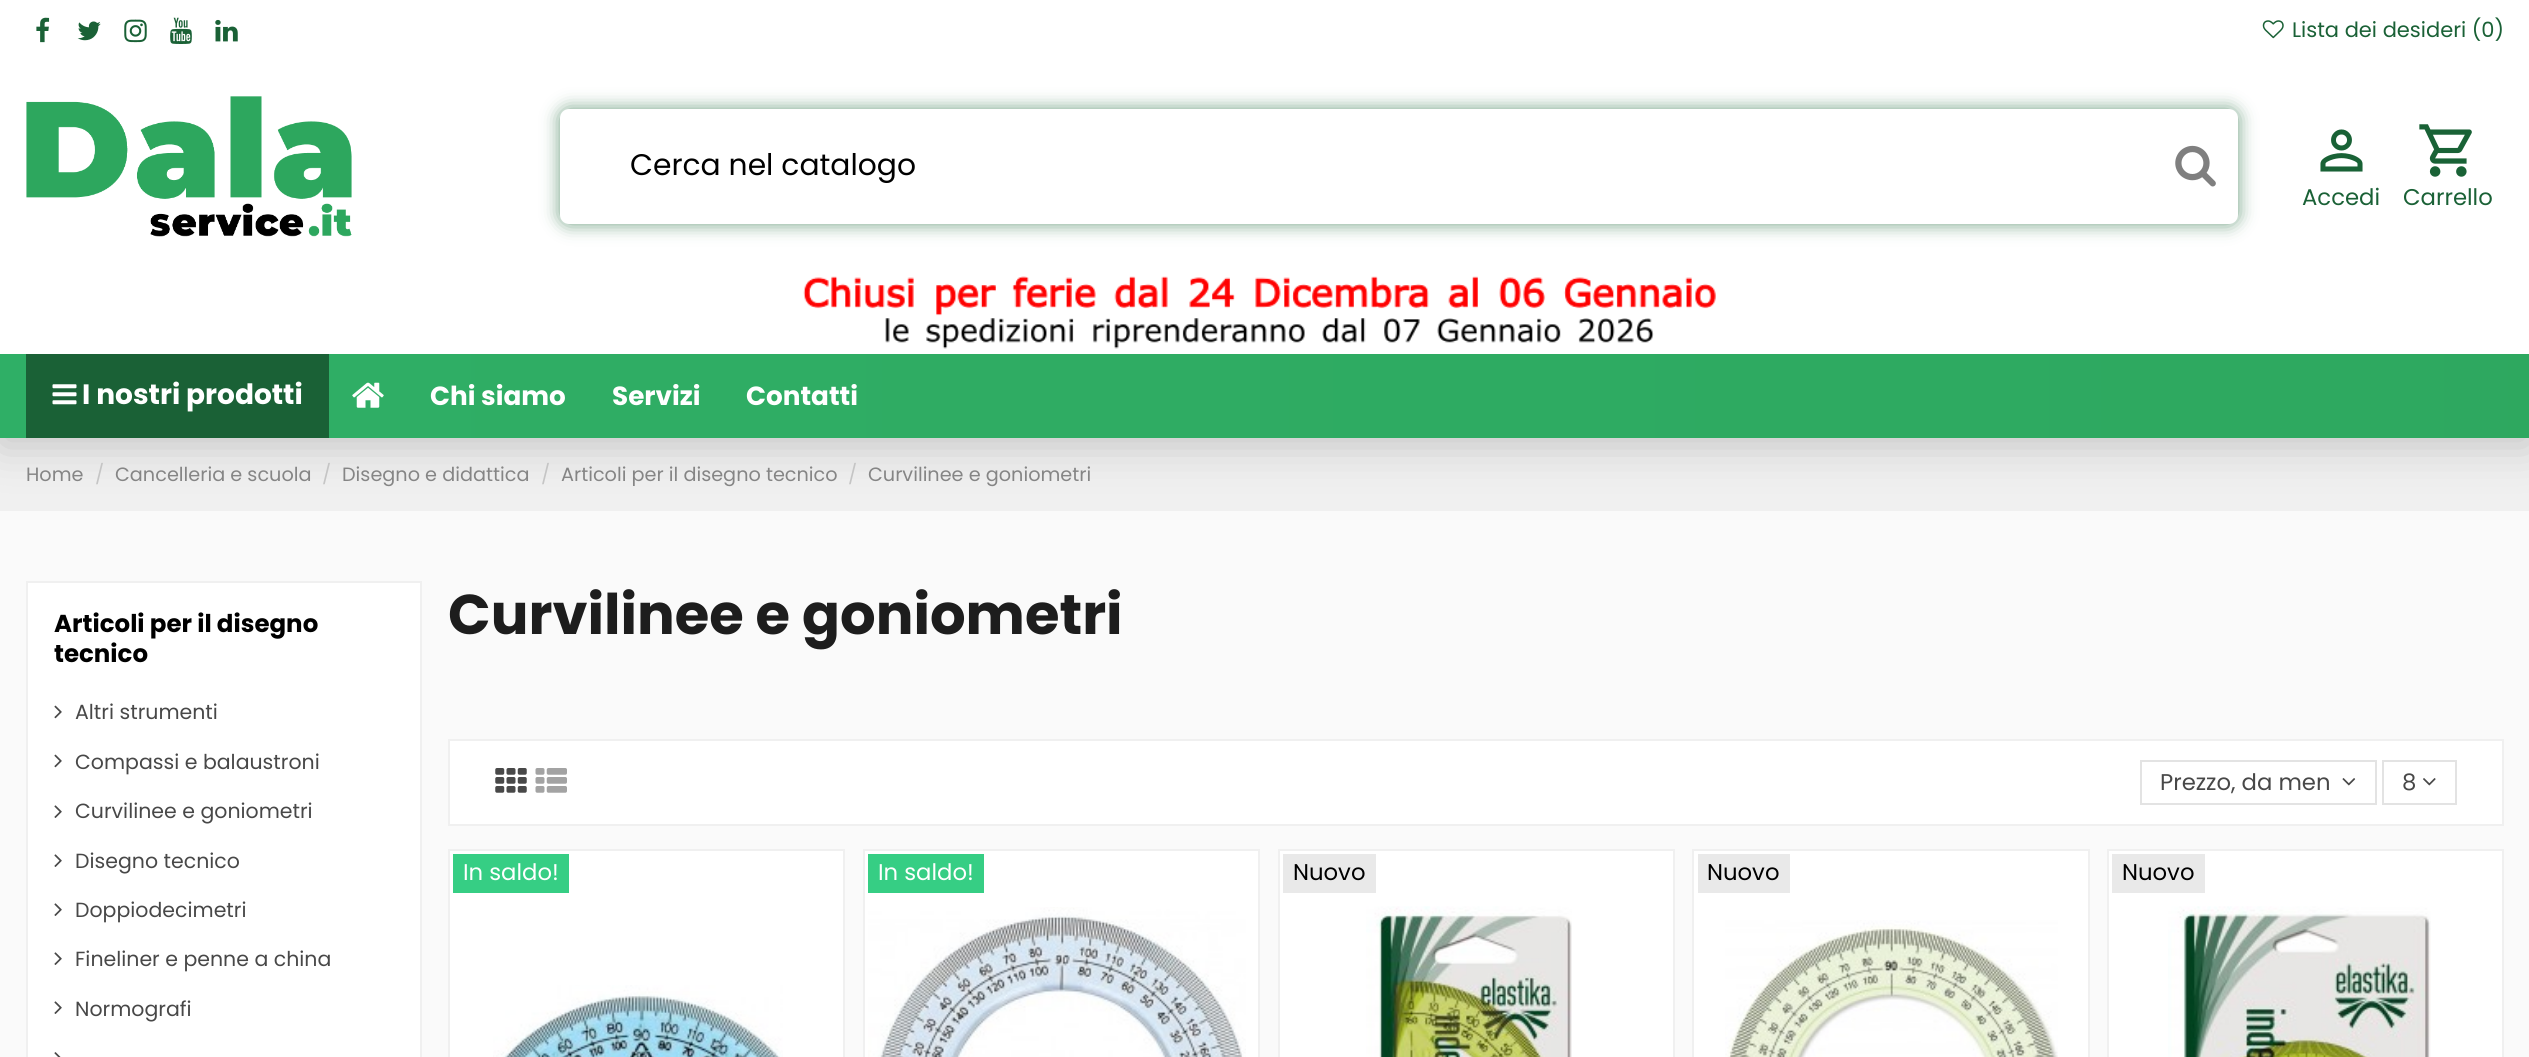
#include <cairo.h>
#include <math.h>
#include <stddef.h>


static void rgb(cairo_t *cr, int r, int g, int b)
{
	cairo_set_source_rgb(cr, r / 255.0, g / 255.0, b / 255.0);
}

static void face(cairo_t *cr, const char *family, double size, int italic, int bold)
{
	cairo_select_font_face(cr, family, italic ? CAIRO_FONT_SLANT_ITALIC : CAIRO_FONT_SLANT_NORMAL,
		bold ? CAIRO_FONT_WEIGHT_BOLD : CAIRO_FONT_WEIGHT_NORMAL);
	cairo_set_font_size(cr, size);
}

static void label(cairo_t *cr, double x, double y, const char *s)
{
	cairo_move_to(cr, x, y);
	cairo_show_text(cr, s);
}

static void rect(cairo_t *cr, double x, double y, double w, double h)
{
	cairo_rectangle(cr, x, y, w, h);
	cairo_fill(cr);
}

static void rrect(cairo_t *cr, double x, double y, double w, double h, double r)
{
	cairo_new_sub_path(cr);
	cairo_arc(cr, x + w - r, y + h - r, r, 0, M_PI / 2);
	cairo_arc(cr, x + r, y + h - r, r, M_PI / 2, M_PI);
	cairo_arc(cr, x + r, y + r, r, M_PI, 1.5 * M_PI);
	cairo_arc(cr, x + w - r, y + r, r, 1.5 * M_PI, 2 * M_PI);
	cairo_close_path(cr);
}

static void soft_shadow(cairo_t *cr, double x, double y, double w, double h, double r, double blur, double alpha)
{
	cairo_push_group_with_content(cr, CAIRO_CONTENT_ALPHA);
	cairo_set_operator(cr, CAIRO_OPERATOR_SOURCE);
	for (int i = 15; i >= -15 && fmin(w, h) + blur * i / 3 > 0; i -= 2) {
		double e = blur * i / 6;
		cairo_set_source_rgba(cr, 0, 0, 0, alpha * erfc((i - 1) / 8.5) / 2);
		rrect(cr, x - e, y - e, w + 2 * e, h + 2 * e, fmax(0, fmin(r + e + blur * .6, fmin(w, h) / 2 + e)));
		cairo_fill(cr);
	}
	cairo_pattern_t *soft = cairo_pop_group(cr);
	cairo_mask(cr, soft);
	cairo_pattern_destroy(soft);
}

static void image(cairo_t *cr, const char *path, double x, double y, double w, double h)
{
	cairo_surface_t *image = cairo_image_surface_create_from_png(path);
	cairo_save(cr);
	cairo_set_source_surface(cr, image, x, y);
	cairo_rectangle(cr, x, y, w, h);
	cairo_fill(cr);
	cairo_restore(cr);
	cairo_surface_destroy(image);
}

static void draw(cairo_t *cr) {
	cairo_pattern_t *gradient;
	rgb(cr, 250, 250, 250);
	cairo_paint(cr);
	rgb(cr, 240, 240, 240);
	rect(cr, 0, 438, 2529, 73);
	rgb(cr, 0, 0, 0);
	soft_shadow(cr, 0, 9, 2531, 437, 0, 22, 0.18);
	rgb(cr, 255, 255, 255);
	rect(cr, 0, 0, 2529, 354);
	image(cr, "image0.png", 36, 17, 14, 26);
	image(cr, "image1.png", 77, 21, 24, 20);
	image(cr, "image2.png", 124, 19, 23, 24);
	image(cr, "image3.png", 170, 17, 22, 27);
	image(cr, "image4.png", 215, 19, 23, 23);
	image(cr, "image5.png", 2262, 20, 22, 19);
	face(cr, "Poppins", 21, 0, 0);
	rgb(cr, 26, 97, 54);
	label(cr, 2292, 37, "Lista dei desideri (0)");
	image(cr, "image6.png", 26, 96, 326, 141);
	rgb(cr, 24, 99, 53);
	soft_shadow(cr, 560, 109, 1678, 115, 9, 9, 0.62);
	rgb(cr, 255, 255, 255);
	rrect(cr, 560, 109, 1678, 115, 9);
	cairo_fill(cr);
	face(cr, "Poppins", 29.75, 0, 0);
	rgb(cr, 0, 0, 0);
	label(cr, 630, 175, "Cerca nel catalogo");
	image(cr, "image7.png", 2175, 145, 41, 42);
	image(cr, "image8.png", 2320, 129, 43, 43);
	face(cr, "Poppins", 22.75, 0, 0);
	rgb(cr, 26, 97, 54);
	label(cr, 2302, 205, "Accedi");
	image(cr, "image9.png", 2419, 124, 53, 53);
	label(cr, 2403, 205, "Carrello");
	image(cr, "image10.png", 803, 276, 913, 73);
	gradient = cairo_pattern_create_linear(-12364, 396, 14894, 395);
	cairo_pattern_add_color_stop_rgba(gradient, 0, 0.212, 0.808, 0.518, 1);
	cairo_pattern_add_color_stop_rgba(gradient, 1, 0.153, 0.537, 0.255, 1);
	cairo_set_source(cr, gradient);
	cairo_pattern_destroy(gradient);
	rect(cr, 0, 354, 2529, 84);
	rgb(cr, 26, 97, 54);
	rect(cr, 26, 354, 303, 84);
	image(cr, "image11.png", 52, 384, 25, 21);
	face(cr, "Poppins", 28, 0, 1);
	rgb(cr, 255, 255, 255);
	label(cr, 82, 404, "I nostri prodotti");
	image(cr, "image12.png", 352, 382, 32, 26);
	face(cr, "Poppins", 26.25, 0, 1);
	label(cr, 430, 405, "Chi siamo");
	label(cr, 612, 405, "Servizi");
	label(cr, 746, 405, "Contatti");
	face(cr, "Poppins", 19.25, 0, 0);
	rgb(cr, 133, 133, 133);
	label(cr, 26, 481, "Home");
	rgb(cr, 197, 197, 197);
	label(cr, 95, 481, "/");
	rgb(cr, 133, 133, 133);
	label(cr, 115, 481, "Cancelleria e scuola");
	rgb(cr, 197, 197, 197);
	label(cr, 322, 481, "/");
	rgb(cr, 133, 133, 133);
	label(cr, 342, 481, "Disegno e didattica");
	rgb(cr, 197, 197, 197);
	label(cr, 541, 481, "/");
	rgb(cr, 133, 133, 133);
	label(cr, 561, 481, "Articoli per il disegno tecnico");
	rgb(cr, 197, 197, 197);
	label(cr, 848, 481, "/");
	rgb(cr, 133, 133, 133);
	label(cr, 868, 481, "Curvilinee e goniometri");
	rgb(cr, 255, 255, 255);
	cairo_rectangle(cr, 27, 582, 394, 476);
	cairo_fill_preserve(cr);
	rgb(cr, 240, 240, 240);
	cairo_stroke(cr);
	face(cr, "Poppins", 24.5, 0, 1);
	rgb(cr, 0, 0, 0);
	label(cr, 54, 632, "Articoli per il disegno");
	label(cr, 54, 662, "tecnico");
	image(cr, "image13.png", 54, 705, 8, 14);
	face(cr, "Poppins", 20.5, 0, 0);
	rgb(cr, 72, 72, 72);
	label(cr, 75, 719, "Altri strumenti");
	image(cr, "image13.png", 54, 754, 8, 14);
	label(cr, 75, 769, "Compassi e balaustroni");
	image(cr, "image14.png", 54, 805, 8, 13);
	label(cr, 75, 818, "Curvilinee e goniometri");
	image(cr, "image14.png", 54, 854, 8, 13);
	label(cr, 75, 868, "Disegno tecnico");
	image(cr, "image14.png", 54, 903, 8, 13);
	label(cr, 75, 917, "Doppiodecimetri");
	image(cr, "image14.png", 54, 952, 8, 13);
	label(cr, 75, 966, "Fineliner e penne a china");
	image(cr, "image14.png", 54, 1001, 8, 13);
	label(cr, 75, 1016, "Normografi");
	image(cr, "image15.png", 54, 1052, 7, 5);
	face(cr, "Poppins", 56, 0, 1);
	rgb(cr, 29, 29, 29);
	label(cr, 448, 634, "Curvilinee e goniometri");
	rgb(cr, 255, 255, 255);
	cairo_rectangle(cr, 449, 740, 2054, 85);
	cairo_fill_preserve(cr);
	rgb(cr, 240, 240, 240);
	cairo_stroke(cr);
	image(cr, "image16.png", 495, 768, 32, 25);
	image(cr, "image17.png", 535, 768, 32, 25);
	cairo_rectangle(cr, 2141, 761, 235, 43);
	rgb(cr, 227, 227, 227);
	cairo_stroke(cr);
	face(cr, "Poppins", 22.75, 0, 0);
	rgb(cr, 72, 72, 72);
	label(cr, 2160, 790, "Prezzo, da men");
	image(cr, "image18.png", 2342, 778, 14, 8);
	cairo_rectangle(cr, 2383, 761, 73, 43);
	rgb(cr, 227, 227, 227);
	cairo_stroke(cr);
	rgb(cr, 72, 72, 72);
	label(cr, 2402, 790, "8");
	image(cr, "image19.png", 2423, 778, 13, 8);
	rgb(cr, 255, 255, 255);
	cairo_rectangle(cr, 449, 850, 395, 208);
	cairo_fill_preserve(cr);
	rgb(cr, 240, 240, 240);
	cairo_stroke(cr);
	rgb(cr, 54, 206, 132);
	rect(cr, 453, 854, 116, 39);
	rgb(cr, 255, 255, 255);
	label(cr, 463, 880, "In saldo!");
	image(cr, "image20.png", 493, 985, 290, 72);
	cairo_rectangle(cr, 864, 850, 395, 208);
	cairo_fill_preserve(cr);
	rgb(cr, 240, 240, 240);
	cairo_stroke(cr);
	rgb(cr, 54, 206, 132);
	rect(cr, 868, 854, 116, 39);
	rgb(cr, 255, 255, 255);
	label(cr, 878, 880, "In saldo!");
	image(cr, "image21.png", 868, 907, 378, 150);
	cairo_rectangle(cr, 1279, 850, 395, 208);
	cairo_fill_preserve(cr);
	rgb(cr, 240, 240, 240);
	cairo_stroke(cr);
	rgb(cr, 233, 233, 233);
	rect(cr, 1283, 854, 93, 39);
	rgb(cr, 0, 0, 0);
	label(cr, 1293, 880, "Nuovo");
	image(cr, "image22.png", 1366, 906, 206, 151);
	rgb(cr, 255, 255, 255);
	cairo_rectangle(cr, 1693, 850, 396, 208);
	cairo_fill_preserve(cr);
	rgb(cr, 240, 240, 240);
	cairo_stroke(cr);
	rgb(cr, 233, 233, 233);
	rect(cr, 1698, 854, 92, 39);
	rgb(cr, 0, 0, 0);
	label(cr, 1707, 880, "Nuovo");
	image(cr, "image23.png", 1725, 920, 333, 137);
	rgb(cr, 255, 255, 255);
	cairo_rectangle(cr, 2108, 850, 395, 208);
	cairo_fill_preserve(cr);
	rgb(cr, 240, 240, 240);
	cairo_stroke(cr);
	rgb(cr, 233, 233, 233);
	rect(cr, 2112, 854, 93, 39);
	rgb(cr, 0, 0, 0);
	label(cr, 2122, 880, "Nuovo");
	image(cr, "image24.png", 2168, 906, 263, 151);
}

int main(void) {
	cairo_surface_t *surface = cairo_image_surface_create(CAIRO_FORMAT_RGB24, 2529, 1057);
	cairo_t *cr = cairo_create(surface);
	cairo_font_options_t *options = cairo_font_options_create();
	cairo_font_options_set_hint_metrics(options, CAIRO_HINT_METRICS_OFF);
	cairo_font_options_set_hint_style(options, CAIRO_HINT_STYLE_NONE);
	cairo_set_font_options(cr, options);
	cairo_set_miter_limit(cr, 4);
	draw(cr);
	cairo_surface_write_to_png(surface, "render.png");
	cairo_font_options_destroy(options);
	cairo_destroy(cr);
	cairo_surface_destroy(surface);
	return 0;
}
